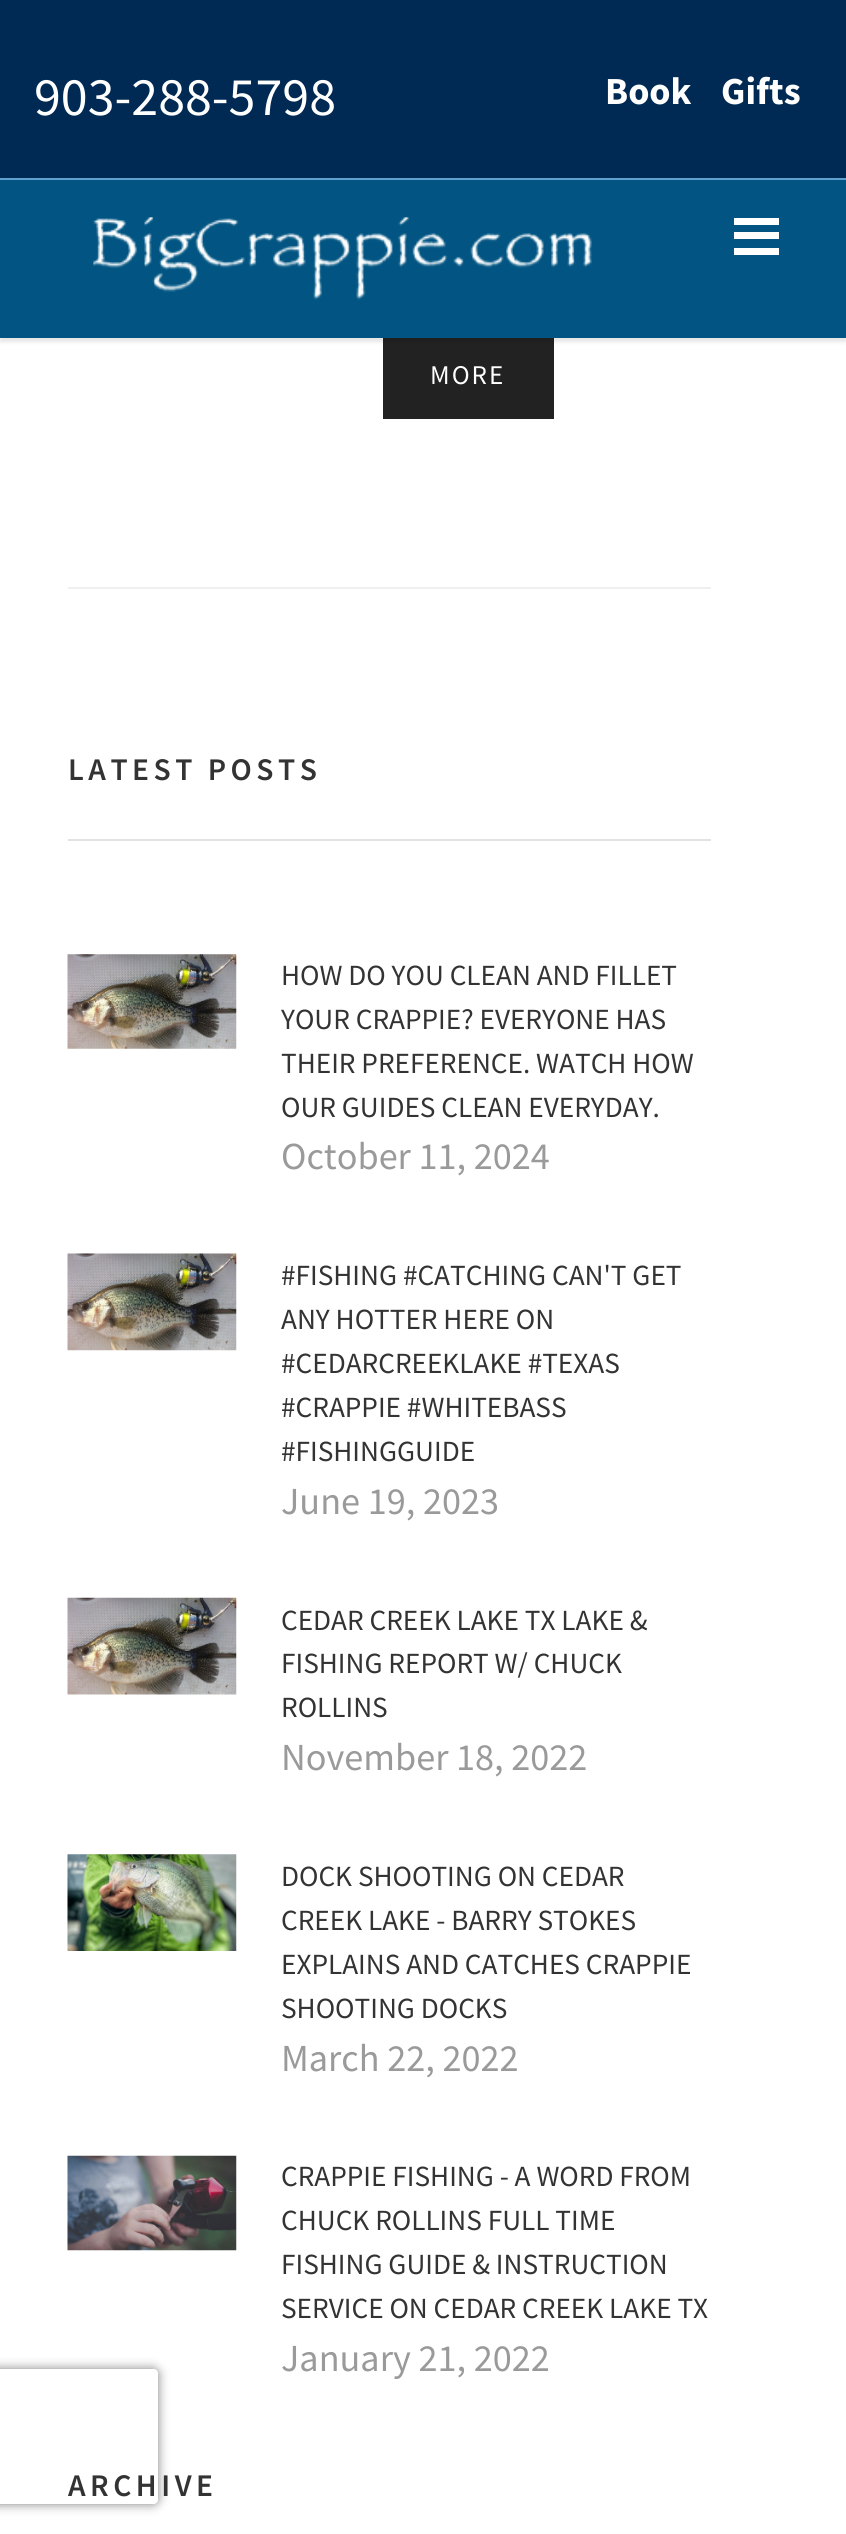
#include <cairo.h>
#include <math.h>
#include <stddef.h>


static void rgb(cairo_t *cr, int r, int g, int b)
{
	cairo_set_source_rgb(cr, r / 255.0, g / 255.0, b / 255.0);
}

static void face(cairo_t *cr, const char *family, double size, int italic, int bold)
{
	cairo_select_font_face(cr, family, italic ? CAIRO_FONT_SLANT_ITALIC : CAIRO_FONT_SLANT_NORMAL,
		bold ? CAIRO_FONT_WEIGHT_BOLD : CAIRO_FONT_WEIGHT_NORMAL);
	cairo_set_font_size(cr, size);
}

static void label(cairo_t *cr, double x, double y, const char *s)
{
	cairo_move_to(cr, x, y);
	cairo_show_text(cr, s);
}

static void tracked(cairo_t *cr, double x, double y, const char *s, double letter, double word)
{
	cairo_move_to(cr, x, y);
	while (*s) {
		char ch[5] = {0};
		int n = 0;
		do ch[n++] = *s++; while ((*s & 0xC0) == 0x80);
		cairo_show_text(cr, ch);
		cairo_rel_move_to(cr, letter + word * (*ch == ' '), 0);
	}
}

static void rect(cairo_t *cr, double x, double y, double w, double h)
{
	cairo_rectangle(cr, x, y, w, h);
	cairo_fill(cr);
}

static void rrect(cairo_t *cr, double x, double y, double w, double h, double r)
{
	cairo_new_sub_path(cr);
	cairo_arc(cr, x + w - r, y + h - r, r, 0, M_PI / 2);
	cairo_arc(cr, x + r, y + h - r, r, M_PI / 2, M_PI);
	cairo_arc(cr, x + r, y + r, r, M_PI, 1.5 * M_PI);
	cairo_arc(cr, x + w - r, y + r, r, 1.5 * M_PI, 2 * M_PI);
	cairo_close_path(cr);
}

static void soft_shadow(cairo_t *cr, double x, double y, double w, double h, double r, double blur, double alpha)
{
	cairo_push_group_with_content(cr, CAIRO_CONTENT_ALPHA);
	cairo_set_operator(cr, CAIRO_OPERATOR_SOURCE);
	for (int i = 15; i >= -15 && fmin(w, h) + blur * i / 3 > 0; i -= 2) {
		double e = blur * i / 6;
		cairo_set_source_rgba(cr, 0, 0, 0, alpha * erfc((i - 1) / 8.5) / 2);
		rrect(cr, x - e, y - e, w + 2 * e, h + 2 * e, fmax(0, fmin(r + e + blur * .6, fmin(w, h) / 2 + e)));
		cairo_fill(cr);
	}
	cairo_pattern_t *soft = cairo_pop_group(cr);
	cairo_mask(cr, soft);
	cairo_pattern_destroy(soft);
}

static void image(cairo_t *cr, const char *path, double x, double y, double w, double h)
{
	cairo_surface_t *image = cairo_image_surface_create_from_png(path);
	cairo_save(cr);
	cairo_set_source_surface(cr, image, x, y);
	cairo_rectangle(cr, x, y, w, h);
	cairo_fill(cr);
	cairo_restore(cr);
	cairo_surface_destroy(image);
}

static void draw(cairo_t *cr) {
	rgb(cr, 255, 255, 255);
	cairo_paint(cr);
	rgb(cr, 34, 34, 34);
	rect(cr, 383, 338, 171, 81);
	rgb(cr, 0, 0, 0);
	soft_shadow(cr, 0, 5, 846, 337, 0, 2, 0.1);
	rgb(cr, 0, 41, 83);
	rect(cr, 0, 0, 846, 178);
	rgb(cr, 94, 161, 206);
	rect(cr, 0, 178, 846, 2);
	face(cr, "Source Sans Pro", 54, 0, 0);
	rgb(cr, 255, 255, 255);
	label(cr, 34, 115, "903-288-5798");
	face(cr, "Source Sans Pro", 38.25, 0, 1);
	label(cr, 605, 104, "Book");
	label(cr, 721, 104, "Gifts");
	rgb(cr, 2, 85, 130);
	rect(cr, 0, 180, 846, 158);
	image(cr, "image0.png", 93, 217, 499, 83);
	rgb(cr, 255, 255, 255);
	rect(cr, 734, 218, 45, 7);
	rect(cr, 734, 232, 45, 7);
	rect(cr, 734, 248, 45, 7);
	rgb(cr, 239, 239, 239);
	rect(cr, 68, 587, 643, 2);
	face(cr, "Source Sans Pro", 27, 0, 0);
	rgb(cr, 255, 255, 255);
	tracked(cr, 430, 384, "MORE", 2, 0);
	rgb(cr, 226, 226, 226);
	rect(cr, 68, 839, 643, 2);
	face(cr, "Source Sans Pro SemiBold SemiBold", 31.5, 0, 0);
	rgb(cr, 51, 51, 51);
	tracked(cr, 68, 780, "LATEST POSTS", 4.5, 0);
	image(cr, "image1.png", 67, 954, 170, 95);
	face(cr, "Source Sans Pro", 29.25, 0, 0);
	label(cr, 281, 985, "HOW DO YOU CLEAN AND FILLET");
	label(cr, 281, 1029, "YOUR CRAPPIE? EVERYONE HAS");
	label(cr, 281, 1073, "THEIR PREFERENCE. WATCH HOW");
	label(cr, 281, 1117, "OUR GUIDES CLEAN EVERYDAY.");
	face(cr, "Source Sans Pro", 38.25, 0, 0);
	rgb(cr, 155, 154, 154);
	label(cr, 281, 1169, "October 11, 2024");
	image(cr, "image2.png", 67, 1253, 170, 98);
	face(cr, "Source Sans Pro", 29.25, 0, 0);
	rgb(cr, 51, 51, 51);
	label(cr, 281, 1285, "#FISHING #CATCHING CAN'T GET");
	label(cr, 281, 1329, "ANY HOTTER HERE ON");
	label(cr, 281, 1373, "#CEDARCREEKLAKE #TEXAS");
	label(cr, 281, 1417, "#CRAPPIE #WHITEBASS");
	label(cr, 281, 1461, "#FISHINGGUIDE");
	face(cr, "Source Sans Pro", 38.25, 0, 0);
	rgb(cr, 155, 154, 154);
	label(cr, 281, 1514, "June 19, 2023");
	image(cr, "image3.png", 67, 1597, 170, 98);
	face(cr, "Source Sans Pro", 29.25, 0, 0);
	rgb(cr, 51, 51, 51);
	label(cr, 281, 1630, "CEDAR CREEK LAKE TX LAKE &");
	label(cr, 281, 1673, "FISHING REPORT W/ CHUCK");
	label(cr, 281, 1717, "ROLLINS");
	face(cr, "Source Sans Pro", 38.25, 0, 0);
	rgb(cr, 155, 154, 154);
	label(cr, 281, 1770, "November 18, 2022");
	image(cr, "image4.png", 67, 1854, 170, 97);
	face(cr, "Source Sans Pro", 29.25, 0, 0);
	rgb(cr, 51, 51, 51);
	label(cr, 281, 1886, "DOCK SHOOTING ON CEDAR");
	label(cr, 281, 1930, "CREEK LAKE - BARRY STOKES");
	label(cr, 281, 1974, "EXPLAINS AND CATCHES CRAPPIE");
	label(cr, 281, 2018, "SHOOTING DOCKS");
	face(cr, "Source Sans Pro", 38.25, 0, 0);
	rgb(cr, 155, 154, 154);
	label(cr, 281, 2071, "March 22, 2022");
	image(cr, "image5.png", 67, 2155, 170, 96);
	face(cr, "Source Sans Pro", 29.25, 0, 0);
	rgb(cr, 51, 51, 51);
	label(cr, 281, 2186, "CRAPPIE FISHING - A WORD FROM");
	label(cr, 281, 2230, "CHUCK ROLLINS FULL TIME");
	label(cr, 281, 2274, "FISHING GUIDE & INSTRUCTION");
	label(cr, 281, 2318, "SERVICE ON CEDAR CREEK LAKE TX");
	face(cr, "Source Sans Pro", 38.25, 0, 0);
	rgb(cr, 155, 154, 154);
	label(cr, 281, 2371, "January 21, 2022");
	cairo_save(cr);
	cairo_set_fill_rule(cr, CAIRO_FILL_RULE_EVEN_ODD);
	cairo_new_path(cr);
	cairo_move_to(cr, 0, 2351);
	cairo_line_to(cr, 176, 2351);
	cairo_line_to(cr, 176, 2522);
	cairo_line_to(cr, 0, 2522);
	cairo_close_path(cr);
	cairo_move_to(cr, -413, 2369);
	cairo_line_to(cr, 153, 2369);
	cairo_curve_to(cr, 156, 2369, 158, 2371, 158, 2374);
	cairo_line_to(cr, 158, 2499);
	cairo_curve_to(cr, 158, 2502, 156, 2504, 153, 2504);
	cairo_line_to(cr, -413, 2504);
	cairo_curve_to(cr, -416, 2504, -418, 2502, -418, 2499);
	cairo_line_to(cr, -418, 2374);
	cairo_curve_to(cr, -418, 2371, -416, 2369, -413, 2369);
	cairo_close_path(cr);
	cairo_clip(cr);
	rgb(cr, 128, 128, 128);
	soft_shadow(cr, -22, 2369, 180, 135, 5, 5.5, 1);
	cairo_restore(cr);
	face(cr, "Source Sans Pro SemiBold SemiBold", 31.5, 0, 0);
	rgb(cr, 51, 51, 51);
	tracked(cr, 68, 2496, "ARCHIVE", 4.5, 0);
}

int main(void) {
	cairo_surface_t *surface = cairo_image_surface_create(CAIRO_FORMAT_RGB24, 846, 2534);
	cairo_t *cr = cairo_create(surface);
	cairo_font_options_t *options = cairo_font_options_create();
	cairo_font_options_set_hint_metrics(options, CAIRO_HINT_METRICS_OFF);
	cairo_font_options_set_hint_style(options, CAIRO_HINT_STYLE_NONE);
	cairo_set_font_options(cr, options);
	cairo_set_miter_limit(cr, 4);
	draw(cr);
	cairo_surface_write_to_png(surface, "render.png");
	cairo_font_options_destroy(options);
	cairo_destroy(cr);
	cairo_surface_destroy(surface);
	return 0;
}
